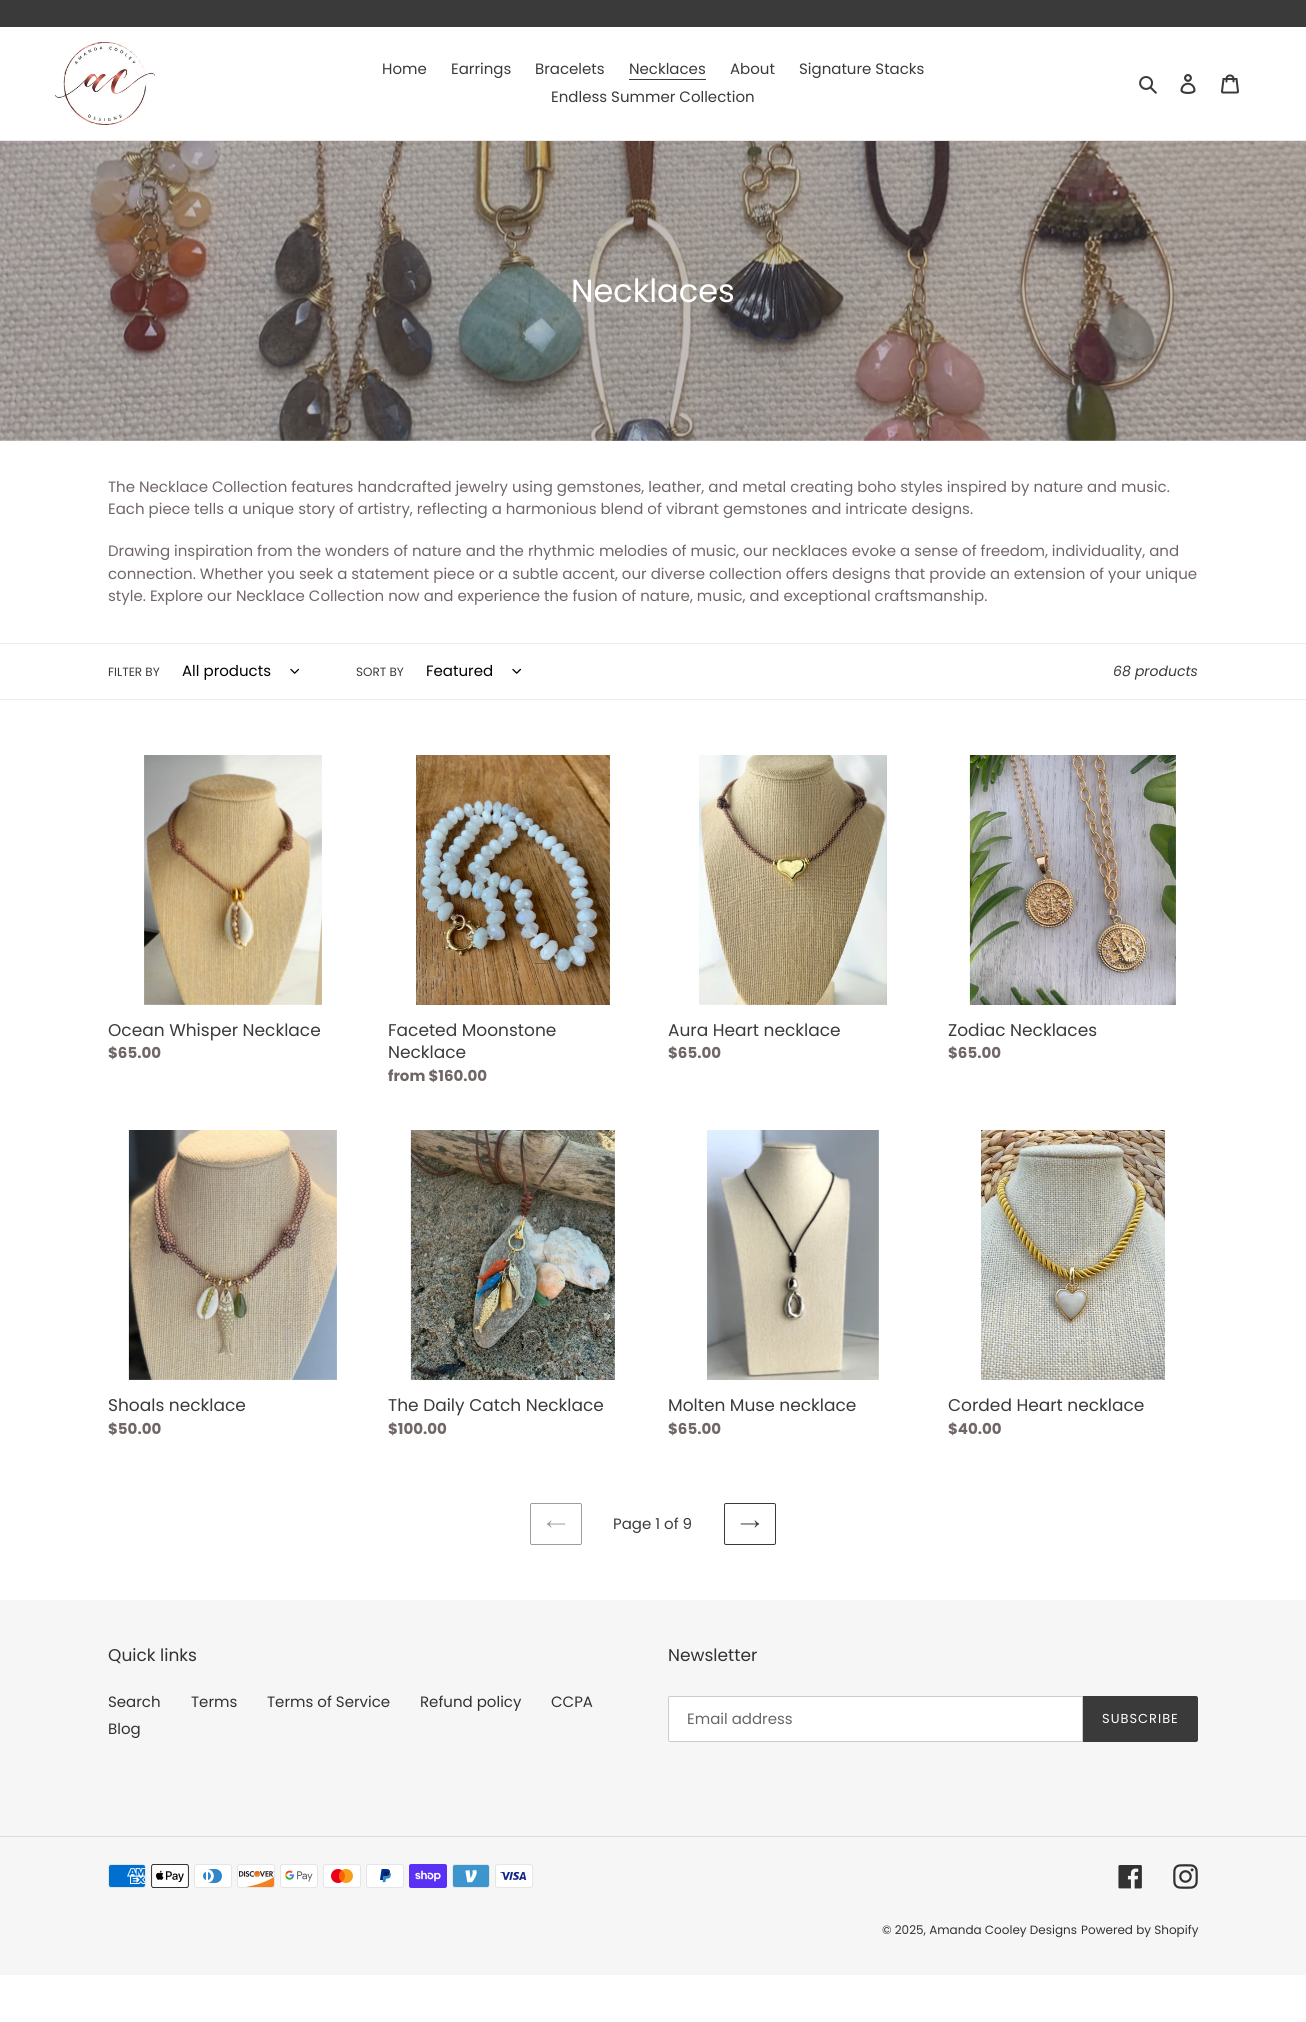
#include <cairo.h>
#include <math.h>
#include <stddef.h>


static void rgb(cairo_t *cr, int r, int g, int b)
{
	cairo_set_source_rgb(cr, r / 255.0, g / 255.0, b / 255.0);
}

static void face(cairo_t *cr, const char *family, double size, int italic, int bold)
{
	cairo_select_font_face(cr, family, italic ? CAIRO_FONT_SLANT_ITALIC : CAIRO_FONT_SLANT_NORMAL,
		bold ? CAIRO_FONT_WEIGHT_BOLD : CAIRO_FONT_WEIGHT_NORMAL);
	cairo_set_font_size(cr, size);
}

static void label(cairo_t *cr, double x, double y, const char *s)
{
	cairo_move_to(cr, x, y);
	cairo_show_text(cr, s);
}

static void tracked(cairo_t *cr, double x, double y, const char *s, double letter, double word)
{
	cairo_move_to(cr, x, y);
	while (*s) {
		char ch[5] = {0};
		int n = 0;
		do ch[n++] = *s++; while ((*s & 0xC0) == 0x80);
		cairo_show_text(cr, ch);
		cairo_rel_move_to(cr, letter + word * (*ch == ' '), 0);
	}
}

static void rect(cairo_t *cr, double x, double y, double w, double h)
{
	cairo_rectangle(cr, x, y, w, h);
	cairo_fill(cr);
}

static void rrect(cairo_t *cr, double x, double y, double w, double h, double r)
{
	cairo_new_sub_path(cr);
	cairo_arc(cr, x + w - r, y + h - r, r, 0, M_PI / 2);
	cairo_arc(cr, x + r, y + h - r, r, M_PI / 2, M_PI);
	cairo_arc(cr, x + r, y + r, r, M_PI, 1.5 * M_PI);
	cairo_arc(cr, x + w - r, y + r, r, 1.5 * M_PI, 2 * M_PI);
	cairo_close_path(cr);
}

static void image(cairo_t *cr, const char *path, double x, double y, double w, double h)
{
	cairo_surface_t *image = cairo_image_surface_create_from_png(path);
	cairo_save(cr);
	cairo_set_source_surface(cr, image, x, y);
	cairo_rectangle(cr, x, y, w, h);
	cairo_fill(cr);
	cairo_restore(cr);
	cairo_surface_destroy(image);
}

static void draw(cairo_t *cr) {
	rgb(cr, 255, 255, 255);
	cairo_paint(cr);
	rgb(cr, 58, 58, 58);
	rect(cr, 0, 0, 1306, 27);
	rgb(cr, 235, 235, 235);
	rect(cr, 0, 140, 1306, 1);
	image(cr, "image0.png", 55, 42, 100, 83);
	face(cr, "Poppins", 15, 0, 0);
	rgb(cr, 58, 58, 58);
	label(cr, 382, 74, "Home");
	label(cr, 451, 74, "Earrings");
	label(cr, 535, 74, "Bracelets");
	label(cr, 629, 74, "Necklaces");
	rect(cr, 629, 79, 77, 1);
	label(cr, 730, 74, "About");
	label(cr, 799, 74, "Signature Stacks");
	label(cr, 551, 102, "Endless Summer Collection");
	image(cr, "image1.png", 1139, 76, 18, 18);
	image(cr, "image2.png", 1180, 74, 16, 20);
	image(cr, "image3.png", 1221, 74, 18, 20);
	image(cr, "image4.png", 0, 141, 1306, 300);
	face(cr, "Poppins", 32, 0, 0);
	rgb(cr, 255, 255, 255);
	label(cr, 571, 302, "Necklaces");
	face(cr, "Poppins", 15, 0, 0);
	rgb(cr, 113, 102, 102);
	label(cr, 108, 492, "The Necklace Collection features handcrafted jewelry using gemstones, leather, and metal creating boho styles inspired by nature and music.");
	label(cr, 108, 514, "Each piece tells a unique story of artistry, reflecting a harmonious blend of vibrant gemstones and intricate designs.");
	label(cr, 108, 556, "Drawing inspiration from the wonders of nature and the rhythmic melodies of music, our necklaces evoke a sense of freedom, individuality, and");
	label(cr, 108, 579, "connection. Whether you seek a statement piece or a subtle accent, our diverse collection offers designs that provide an extension of your unique");
	label(cr, 108, 601, "style. Explore our Necklace Collection now and experience the fusion of nature, music, and exceptional craftsmanship.");
	rgb(cr, 235, 235, 235);
	rect(cr, 0, 643, 1306, 1);
	rect(cr, 0, 699, 1306, 1);
	face(cr, "Poppins", 12, 0, 0);
	rgb(cr, 58, 58, 58);
	label(cr, 108, 676, "FILTER BY");
	face(cr, "Poppins", 15, 0, 0);
	rgb(cr, 0, 0, 0);
	label(cr, 182, 676, "All products");
	image(cr, "image5.png", 290, 668, 9, 6);
	face(cr, "Poppins", 12, 0, 0);
	rgb(cr, 58, 58, 58);
	label(cr, 356, 676, "SORT BY");
	face(cr, "Poppins", 15, 0, 0);
	rgb(cr, 0, 0, 0);
	label(cr, 426, 676, "Featured");
	image(cr, "image5.png", 512, 668, 9, 6);
	face(cr, "Poppins", 14, 1, 0);
	rgb(cr, 58, 58, 58);
	label(cr, 1113, 676, "68 products");
	image(cr, "image6.png", 144, 755, 178, 250);
	face(cr, "Poppins", 17, 0, 0);
	label(cr, 108, 1036, "Ocean Whisper Necklace");
	face(cr, "Poppins", 15, 0, 1);
	rgb(cr, 113, 102, 102);
	label(cr, 108, 1058, "$65.00");
	image(cr, "image7.png", 416, 755, 194, 250);
	face(cr, "Poppins", 17, 0, 0);
	rgb(cr, 58, 58, 58);
	label(cr, 388, 1036, "Faceted Moonstone");
	label(cr, 388, 1058, "Necklace");
	face(cr, "Poppins", 15, 0, 1);
	rgb(cr, 113, 102, 102);
	label(cr, 388, 1081, "from $160.00");
	image(cr, "image8.png", 699, 755, 188, 250);
	face(cr, "Poppins", 17, 0, 0);
	rgb(cr, 58, 58, 58);
	label(cr, 668, 1036, "Aura Heart necklace");
	face(cr, "Poppins", 15, 0, 1);
	rgb(cr, 113, 102, 102);
	label(cr, 668, 1058, "$65.00");
	image(cr, "image9.png", 969, 755, 207, 250);
	face(cr, "Poppins", 17, 0, 0);
	rgb(cr, 58, 58, 58);
	label(cr, 948, 1036, "Zodiac Necklaces");
	face(cr, "Poppins", 15, 0, 1);
	rgb(cr, 113, 102, 102);
	label(cr, 948, 1058, "$65.00");
	image(cr, "image10.png", 128, 1130, 209, 250);
	face(cr, "Poppins", 17, 0, 0);
	rgb(cr, 58, 58, 58);
	label(cr, 108, 1411, "Shoals necklace");
	face(cr, "Poppins", 15, 0, 1);
	rgb(cr, 113, 102, 102);
	label(cr, 108, 1434, "$50.00");
	image(cr, "image11.png", 410, 1130, 205, 250);
	face(cr, "Poppins", 17, 0, 0);
	rgb(cr, 58, 58, 58);
	label(cr, 388, 1411, "The Daily Catch Necklace");
	face(cr, "Poppins", 15, 0, 1);
	rgb(cr, 113, 102, 102);
	label(cr, 388, 1434, "$100.00");
	image(cr, "image12.png", 707, 1130, 172, 250);
	face(cr, "Poppins", 17, 0, 0);
	rgb(cr, 58, 58, 58);
	label(cr, 668, 1411, "Molten Muse necklace");
	face(cr, "Poppins", 15, 0, 1);
	rgb(cr, 113, 102, 102);
	label(cr, 668, 1434, "$65.00");
	image(cr, "image13.png", 981, 1130, 184, 250);
	face(cr, "Poppins", 17, 0, 0);
	rgb(cr, 58, 58, 58);
	label(cr, 948, 1411, "Corded Heart necklace");
	face(cr, "Poppins", 15, 0, 1);
	rgb(cr, 113, 102, 102);
	label(cr, 948, 1434, "$40.00");
	rrect(cr, 530.5, 1503.5, 51, 41, 1.5);
	rgb(cr, 157, 157, 157);
	cairo_set_line_width(cr, 1);
	cairo_stroke(cr);
	image(cr, "image14.png", 546, 1520, 20, 8);
	face(cr, "Poppins", 15, 0, 0);
	rgb(cr, 58, 58, 58);
	label(cr, 613, 1529, "Page 1 of 9");
	rrect(cr, 724.5, 1503.5, 51, 41, 1.5);
	cairo_stroke(cr);
	image(cr, "image15.png", 740, 1520, 20, 8);
	rgb(cr, 246, 246, 246);
	rect(cr, 0, 1600, 1306, 375);
	face(cr, "Poppins", 17, 0, 0);
	rgb(cr, 51, 50, 50);
	label(cr, 108, 1661, "Quick links");
	face(cr, "Poppins", 15, 0, 0);
	label(cr, 108, 1707, "Search");
	label(cr, 191, 1707, "Terms");
	label(cr, 267, 1707, "Terms of Service");
	label(cr, 420, 1707, "Refund policy");
	label(cr, 551, 1707, "CCPA");
	label(cr, 108, 1734, "Blog");
	face(cr, "Poppins", 17, 0, 0);
	label(cr, 668, 1661, "Newsletter");
	rgb(cr, 255, 255, 255);
	cairo_new_path(cr);
	cairo_move_to(cr, 670, 1696.5);
	cairo_line_to(cr, 1082.5, 1696.5);
	cairo_line_to(cr, 1082.5, 1741.5);
	cairo_line_to(cr, 670, 1741.5);
	cairo_curve_to(cr, 669, 1741.5, 668.5, 1741, 668.5, 1740);
	cairo_line_to(cr, 668.5, 1698);
	cairo_curve_to(cr, 668.5, 1697, 669, 1696.5, 670, 1696.5);
	cairo_close_path(cr);
	cairo_fill_preserve(cr);
	rgb(cr, 204, 204, 204);
	cairo_stroke(cr);
	face(cr, "Poppins", 15, 0, 0);
	rgb(cr, 102, 102, 102);
	label(cr, 687, 1724, "Email address");
	rgb(cr, 58, 58, 58);
	cairo_new_path(cr);
	cairo_move_to(cr, 1083, 1696);
	cairo_line_to(cr, 1196, 1696);
	cairo_curve_to(cr, 1197, 1696, 1198, 1697, 1198, 1698);
	cairo_line_to(cr, 1198, 1740);
	cairo_curve_to(cr, 1198, 1741, 1197, 1742, 1196, 1742);
	cairo_line_to(cr, 1083, 1742);
	cairo_close_path(cr);
	cairo_fill(cr);
	face(cr, "Poppins", 13, 0, 0);
	rgb(cr, 255, 255, 255);
	tracked(cr, 1102, 1723, "SUBSCRIBE", 1, 0);
	rgb(cr, 221, 221, 221);
	rect(cr, 0, 1836, 1306, 1);
	image(cr, "image16.png", 108, 1864, 38, 24);
	image(cr, "image17.png", 151, 1864, 38, 24);
	image(cr, "image18.png", 194, 1864, 38, 24);
	image(cr, "image19.png", 237, 1864, 38, 24);
	image(cr, "image20.png", 280, 1864, 38, 24);
	image(cr, "image21.png", 323, 1864, 38, 24);
	image(cr, "image22.png", 366, 1864, 38, 24);
	image(cr, "image23.png", 409, 1864, 38, 24);
	image(cr, "image24.png", 452, 1864, 38, 24);
	image(cr, "image25.png", 495, 1864, 38, 24);
	image(cr, "image26.png", 1118, 1865, 24, 24);
	image(cr, "image27.png", 1173, 1864, 25, 25);
	face(cr, "Poppins", 12, 0, 0);
	rgb(cr, 51, 50, 50);
	label(cr, 882, 1934, "© 2025, Amanda Cooley Designs");
	label(cr, 1081, 1934, "Powered by Shopify");
}

int main(void) {
	cairo_surface_t *surface = cairo_image_surface_create(CAIRO_FORMAT_RGB24, 1306, 2022);
	cairo_t *cr = cairo_create(surface);
	cairo_font_options_t *options = cairo_font_options_create();
	cairo_font_options_set_hint_metrics(options, CAIRO_HINT_METRICS_OFF);
	cairo_font_options_set_hint_style(options, CAIRO_HINT_STYLE_NONE);
	cairo_set_font_options(cr, options);
	cairo_set_miter_limit(cr, 4);
	draw(cr);
	cairo_surface_write_to_png(surface, "render.png");
	cairo_font_options_destroy(options);
	cairo_destroy(cr);
	cairo_surface_destroy(surface);
	return 0;
}
